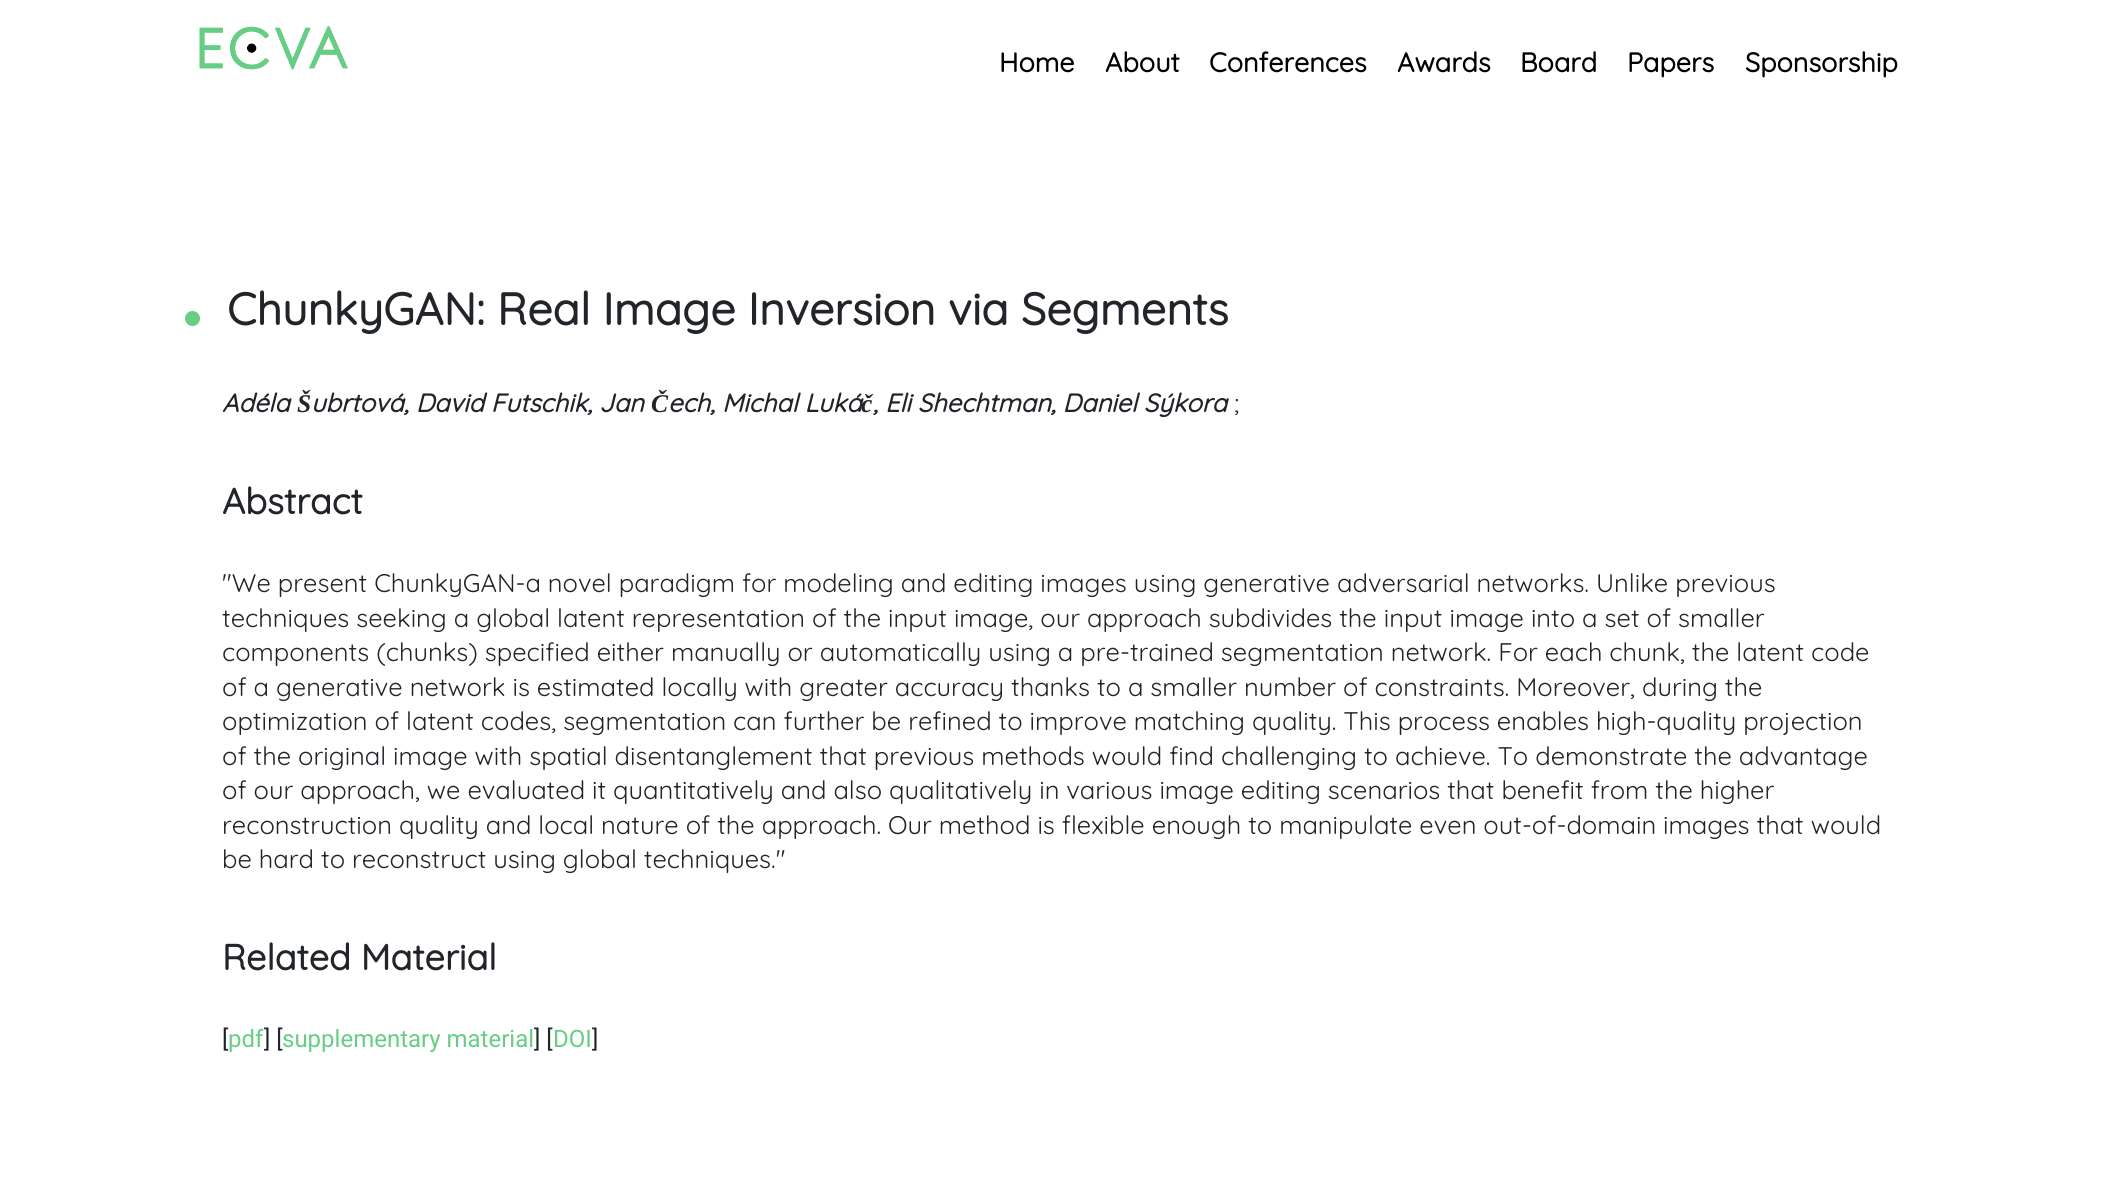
#include <cairo.h>
#include <math.h>
#include <stddef.h>


static void rgb(cairo_t *cr, int r, int g, int b)
{
	cairo_set_source_rgb(cr, r / 255.0, g / 255.0, b / 255.0);
}

static void face(cairo_t *cr, const char *family, double size, int italic, int bold)
{
	cairo_select_font_face(cr, family, italic ? CAIRO_FONT_SLANT_ITALIC : CAIRO_FONT_SLANT_NORMAL,
		bold ? CAIRO_FONT_WEIGHT_BOLD : CAIRO_FONT_WEIGHT_NORMAL);
	cairo_set_font_size(cr, size);
}

static void label(cairo_t *cr, double x, double y, const char *s)
{
	cairo_move_to(cr, x, y);
	cairo_show_text(cr, s);
}

static void image(cairo_t *cr, const char *path, double x, double y, double w, double h)
{
	cairo_surface_t *image = cairo_image_surface_create_from_png(path);
	cairo_save(cr);
	cairo_set_source_surface(cr, image, x, y);
	cairo_rectangle(cr, x, y, w, h);
	cairo_fill(cr);
	cairo_restore(cr);
	cairo_surface_destroy(image);
}

static void draw(cairo_t *cr) {
	rgb(cr, 255, 255, 255);
	cairo_paint(cr);
	image(cr, "image0.png", 199, 26, 149, 44);
	face(cr, "Quicksand", 27, 0, 1);
	rgb(cr, 0, 0, 0);
	label(cr, 999, 72, "Home");
	label(cr, 1105, 72, "About");
	label(cr, 1209, 72, "Conferences");
	label(cr, 1397, 72, "Awards");
	label(cr, 1520, 72, "Board");
	label(cr, 1627, 72, "Papers");
	label(cr, 1745, 72, "Sponsorship");
	rgb(cr, 103, 205, 132);
	cairo_new_path(cr);
	cairo_arc(cr, 192.5, 318.5, 7.5, 0, 2 * M_PI);
	cairo_fill(cr);
	face(cr, "Quicksand", 45, 0, 1);
	rgb(cr, 33, 37, 41);
	label(cr, 227, 325, "ChunkyGAN: Real Image Inversion via Segments");
	face(cr, "Quicksand", 25.5, 1, 1);
	label(cr, 222, 412, "Adéla");
	face(cr, "Liberation Serif", 25.5, 1, 1);
	label(cr, 297, 412, "Š");
	face(cr, "Quicksand", 25.5, 1, 1);
	label(cr, 311, 412, "ubrtová, David Futschik, Jan");
	face(cr, "Liberation Serif", 25.5, 1, 1);
	label(cr, 651, 412, "Č");
	face(cr, "Quicksand", 25.5, 1, 1);
	label(cr, 668, 412, "ech, Michal Luká");
	face(cr, "Liberation Serif", 25.5, 1, 1);
	label(cr, 861, 412, "č");
	face(cr, "Quicksand", 25.5, 1, 1);
	label(cr, 873, 412, ", Eli Shechtman, Daniel Sýkora");
	face(cr, "Quicksand Light", 25.5, 0, 0);
	label(cr, 1234, 412, ";");
	face(cr, "Quicksand", 36, 0, 1);
	label(cr, 222, 514, "Abstract");
	face(cr, "Quicksand Light", 25.5, 0, 0);
	label(cr, 222, 592, "\"We present ChunkyGAN-a novel paradigm for modeling and editing images using generative adversarial networks. Unlike previous");
	label(cr, 222, 627, "techniques seeking a global latent representation of the input image, our approach subdivides the input image into a set of smaller");
	label(cr, 222, 661, "components (chunks) specified either manually or automatically using a pre-trained segmentation network. For each chunk, the latent code");
	label(cr, 222, 696, "of a generative network is estimated locally with greater accuracy thanks to a smaller number of constraints. Moreover, during the");
	label(cr, 222, 730, "optimization of latent codes, segmentation can further be refined to improve matching quality. This process enables high-quality projection");
	label(cr, 222, 765, "of the original image with spatial disentanglement that previous methods would find challenging to achieve. To demonstrate the advantage");
	label(cr, 222, 799, "of our approach, we evaluated it quantitatively and also qualitatively in various image editing scenarios that benefit from the higher");
	label(cr, 222, 834, "reconstruction quality and local nature of the approach. Our method is flexible enough to manipulate even out-of-domain images that would");
	label(cr, 222, 868, "be hard to reconstruct using global techniques.\"");
	face(cr, "Quicksand", 36, 0, 1);
	label(cr, 222, 970, "Related Material");
	face(cr, "Roboto", 24, 0, 0);
	label(cr, 222, 1047, "[");
	rgb(cr, 103, 205, 132);
	label(cr, 228, 1047, "pdf");
	rgb(cr, 33, 37, 41);
	label(cr, 264, 1047, "] [");
	rgb(cr, 103, 205, 132);
	label(cr, 282, 1047, "supplementary material");
	rgb(cr, 33, 37, 41);
	label(cr, 534, 1047, "] [");
	rgb(cr, 103, 205, 132);
	label(cr, 553, 1047, "DOI");
	rgb(cr, 33, 37, 41);
	label(cr, 592, 1047, "]");
}

int main(void) {
	cairo_surface_t *surface = cairo_image_surface_create(CAIRO_FORMAT_RGB24, 2108, 1203);
	cairo_t *cr = cairo_create(surface);
	cairo_font_options_t *options = cairo_font_options_create();
	cairo_font_options_set_hint_metrics(options, CAIRO_HINT_METRICS_OFF);
	cairo_font_options_set_hint_style(options, CAIRO_HINT_STYLE_NONE);
	cairo_set_font_options(cr, options);
	cairo_set_miter_limit(cr, 4);
	draw(cr);
	cairo_surface_write_to_png(surface, "render.png");
	cairo_font_options_destroy(options);
	cairo_destroy(cr);
	cairo_surface_destroy(surface);
	return 0;
}
